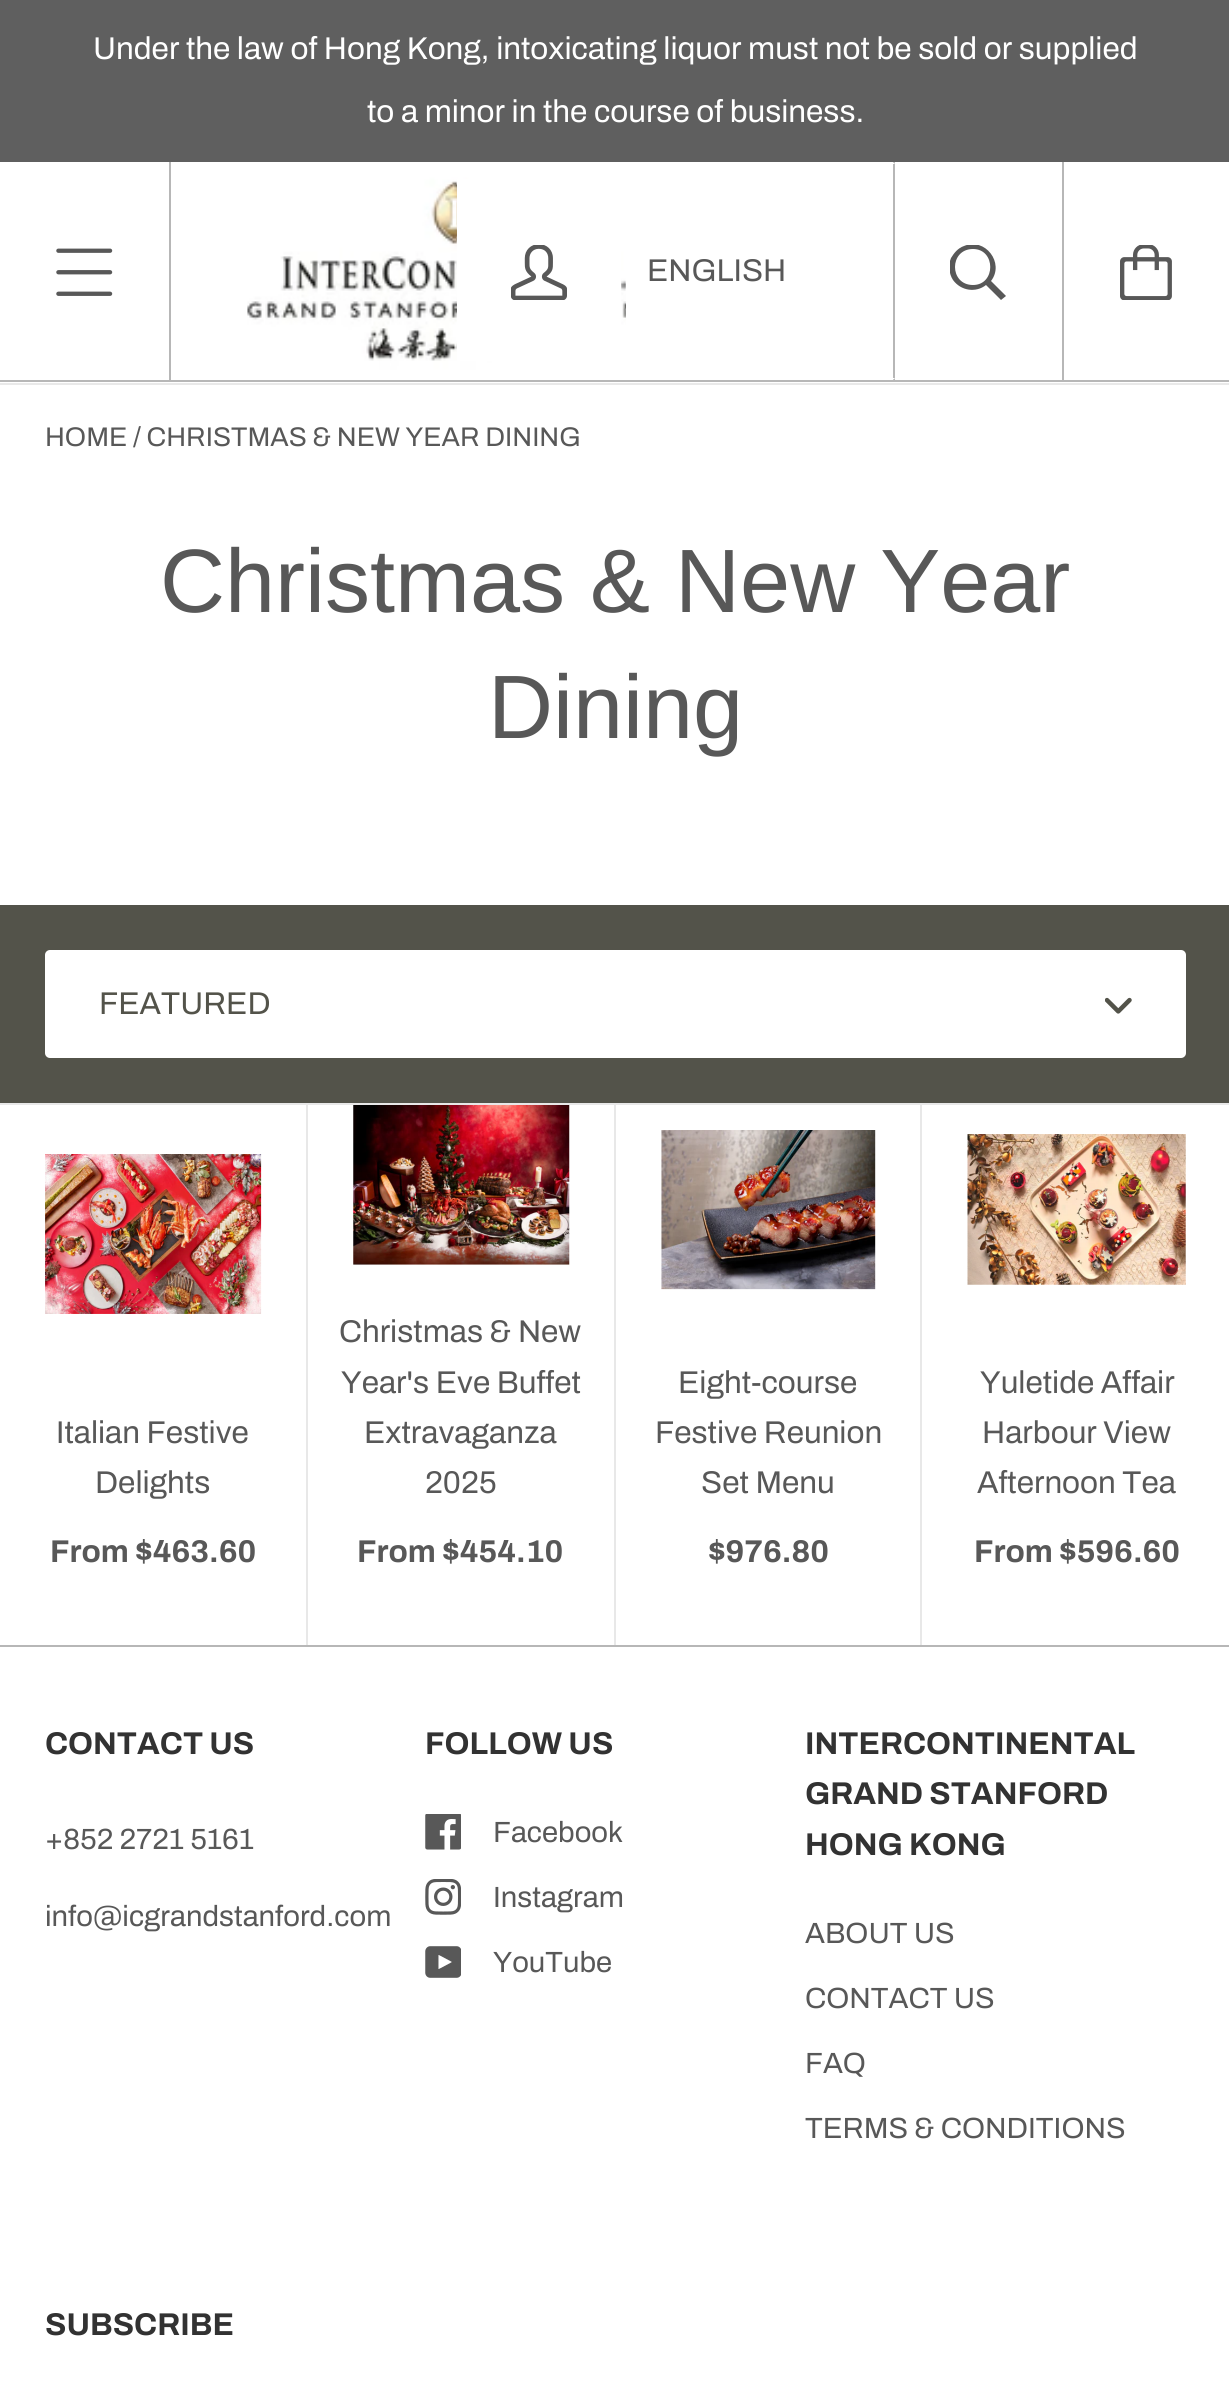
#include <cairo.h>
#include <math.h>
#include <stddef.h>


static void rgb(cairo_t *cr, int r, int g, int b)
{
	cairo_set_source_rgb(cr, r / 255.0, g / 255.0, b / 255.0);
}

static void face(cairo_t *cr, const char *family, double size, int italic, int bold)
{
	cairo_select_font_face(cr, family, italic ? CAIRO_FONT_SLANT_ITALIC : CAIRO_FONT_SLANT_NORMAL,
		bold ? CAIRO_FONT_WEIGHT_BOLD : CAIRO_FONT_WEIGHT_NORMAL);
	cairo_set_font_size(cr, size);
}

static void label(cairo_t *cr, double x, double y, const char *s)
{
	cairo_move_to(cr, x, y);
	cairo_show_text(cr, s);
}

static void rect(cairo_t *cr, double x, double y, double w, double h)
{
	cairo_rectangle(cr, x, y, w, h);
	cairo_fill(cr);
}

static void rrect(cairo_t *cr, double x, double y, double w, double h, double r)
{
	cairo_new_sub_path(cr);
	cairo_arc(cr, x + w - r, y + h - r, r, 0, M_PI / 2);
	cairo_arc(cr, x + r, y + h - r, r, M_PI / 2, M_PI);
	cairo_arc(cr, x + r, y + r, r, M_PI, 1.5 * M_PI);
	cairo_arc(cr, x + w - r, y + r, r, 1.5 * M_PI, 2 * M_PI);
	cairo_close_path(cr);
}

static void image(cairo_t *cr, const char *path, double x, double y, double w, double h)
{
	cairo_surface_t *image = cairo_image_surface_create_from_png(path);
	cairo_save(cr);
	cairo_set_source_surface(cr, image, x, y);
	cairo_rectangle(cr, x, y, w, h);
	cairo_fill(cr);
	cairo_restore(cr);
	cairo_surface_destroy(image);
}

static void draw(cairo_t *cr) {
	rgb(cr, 255, 255, 255);
	cairo_paint(cr);
	rgb(cr, 95, 95, 95);
	rect(cr, 0, 0, 1229, 162);
	face(cr, "Archivo", 31.5, 0, 0);
	rgb(cr, 255, 255, 255);
	label(cr, 93, 59, "Under the law of Hong Kong, intoxicating liquor must not be sold or supplied");
	label(cr, 367, 122, "to a minor in the course of business.");
	rgb(cr, 233, 233, 233);
	cairo_new_path(cr);
	cairo_move_to(cr, 0, 382);
	cairo_line_to(cr, 0, 385);
	cairo_line_to(cr, 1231, 385);
	cairo_line_to(cr, 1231, 164);
	cairo_line_to(cr, 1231, 382);
	cairo_close_path(cr);
	cairo_fill(cr);
	rgb(cr, 255, 255, 255);
	rect(cr, 0, 382, 1229, 1);
	rgb(cr, 183, 183, 183);
	rect(cr, 0, 380, 1229, 2);
	rect(cr, 169, 162, 2, 218);
	image(cr, "image0.png", 247, 162, 379, 218);
	rect(cr, 893, 162, 2, 218);
	cairo_save(cr);
	cairo_rectangle(cr, 950, 245, 56, 55);
	cairo_clip(cr);
	rgb(cr, 88, 88, 88);
	cairo_new_path(cr);
	cairo_move_to(cr, 1006, 296);
	cairo_line_to(cr, 1001, 300);
	cairo_line_to(cr, 986, 285);
	cairo_curve_to(cr, 976, 293, 961, 291, 953, 280);
	cairo_curve_to(cr, 949, 274, 948, 265, 951, 258);
	cairo_curve_to(cr, 954, 253, 958, 248, 964, 246);
	cairo_curve_to(cr, 985, 237, 1005, 263, 991, 281);
	cairo_close_path(cr);
	cairo_move_to(cr, 973, 249);
	cairo_curve_to(cr, 949, 249, 949, 285, 973, 285);
	cairo_curve_to(cr, 996, 285, 996, 249, 973, 249);
	cairo_close_path(cr);
	cairo_fill(cr);
	cairo_restore(cr);
	rect(cr, 1062, 162, 2, 218);
	image(cr, "image1.png", 1120, 245, 52, 55);
	image(cr, "image2.png", 56, 248, 57, 48);
	rgb(cr, 255, 255, 255);
	rect(cr, 457, 179, 164, 182);
	image(cr, "image3.png", 511, 245, 56, 55);
	rrect(cr, 626, 162, 270, 218, 5);
	cairo_fill(cr);
	rgb(cr, 183, 183, 183);
	rect(cr, 893, 164, 2, 214);
	rgb(cr, 88, 88, 88);
	label(cr, 647, 281, "ENGLISH");
	face(cr, "Archivo", 27, 0, 0);
	label(cr, 45, 446, "HOME / CHRISTMAS & NEW YEAR DINING");
	face(cr, "Arimo", 90, 0, 0);
	label(cr, 160, 612, "Christmas & New Year");
	label(cr, 488, 738, "Dining");
	rgb(cr, 83, 83, 74);
	rect(cr, 0, 905, 1229, 198);
	rgb(cr, 255, 255, 255);
	rrect(cr, 45, 950, 1141, 108, 5);
	cairo_fill(cr);
	face(cr, "Archivo", 31.5, 0, 0);
	rgb(cr, 83, 83, 74);
	label(cr, 99, 1014, "FEATURED");
	image(cr, "image4.png", 1105, 997, 27, 17);
	rgb(cr, 232, 232, 232);
	rect(cr, 0, 1103, 1229, 2);
	rect(cr, 306, 1105, 2, 540);
	image(cr, "image5.png", 45, 1154, 217, 160);
	rgb(cr, 88, 88, 88);
	label(cr, 56, 1443, "Italian Festive");
	label(cr, 95, 1493, "Delights");
	face(cr, "Archivo", 31.5, 0, 1);
	label(cr, 50, 1562, "From $463.60");
	rgb(cr, 232, 232, 232);
	rect(cr, 614, 1105, 2, 540);
	image(cr, "image6.png", 353, 1105, 217, 160);
	face(cr, "Archivo", 31.5, 0, 0);
	rgb(cr, 88, 88, 88);
	label(cr, 339, 1342, "Christmas & New");
	label(cr, 341, 1393, "Year's Eve Buffet");
	label(cr, 364, 1443, "Extravaganza");
	label(cr, 425, 1493, "2025");
	face(cr, "Archivo", 31.5, 0, 1);
	label(cr, 357, 1562, "From $454.10");
	rgb(cr, 232, 232, 232);
	rect(cr, 920, 1105, 2, 540);
	image(cr, "image7.png", 661, 1130, 215, 160);
	face(cr, "Archivo", 31.5, 0, 0);
	rgb(cr, 88, 88, 88);
	label(cr, 678, 1393, "Eight-course");
	label(cr, 655, 1443, "Festive Reunion");
	label(cr, 701, 1493, "Set Menu");
	face(cr, "Archivo", 31.5, 0, 1);
	label(cr, 708, 1562, "$976.80");
	image(cr, "image8.png", 967, 1134, 219, 151);
	face(cr, "Archivo", 31.5, 0, 0);
	label(cr, 980, 1393, "Yuletide Affair");
	label(cr, 982, 1443, "Harbour View");
	label(cr, 977, 1493, "Afternoon Tea");
	face(cr, "Archivo", 31.5, 0, 1);
	label(cr, 974, 1562, "From $596.60");
	rgb(cr, 183, 183, 183);
	rect(cr, 0, 1645, 1229, 2);
	rgb(cr, 50, 50, 50);
	label(cr, 45, 1754, "CONTACT US");
	face(cr, "Archivo", 29.25, 0, 0);
	rgb(cr, 88, 88, 88);
	label(cr, 45, 1849, "+852 2721 5161");
	label(cr, 45, 1926, "info@icgrandstanford.com");
	face(cr, "Archivo", 31.5, 0, 1);
	rgb(cr, 50, 50, 50);
	label(cr, 425, 1754, "FOLLOW US");
	image(cr, "image9.png", 425, 1814, 36, 36);
	face(cr, "Archivo", 29.25, 0, 0);
	rgb(cr, 88, 88, 88);
	label(cr, 493, 1842, "Facebook");
	image(cr, "image10.png", 425, 1879, 36, 36);
	label(cr, 493, 1907, "Instagram");
	image(cr, "image11.png", 425, 1946, 36, 32);
	label(cr, 493, 1972, "YouTube");
	face(cr, "Archivo", 31.5, 0, 1);
	rgb(cr, 50, 50, 50);
	label(cr, 805, 1754, "INTERCONTINENTAL");
	label(cr, 805, 1804, "GRAND STANFORD");
	label(cr, 805, 1855, "HONG KONG");
	face(cr, "Archivo", 29.25, 0, 0);
	rgb(cr, 88, 88, 88);
	label(cr, 805, 1943, "ABOUT US");
	label(cr, 805, 2008, "CONTACT US");
	label(cr, 805, 2073, "FAQ");
	label(cr, 805, 2138, "TERMS & CONDITIONS");
	face(cr, "Archivo", 31.5, 0, 1);
	rgb(cr, 50, 50, 50);
	label(cr, 45, 2335, "SUBSCRIBE");
}

int main(void) {
	cairo_surface_t *surface = cairo_image_surface_create(CAIRO_FORMAT_RGB24, 1229, 2388);
	cairo_t *cr = cairo_create(surface);
	cairo_font_options_t *options = cairo_font_options_create();
	cairo_font_options_set_hint_metrics(options, CAIRO_HINT_METRICS_OFF);
	cairo_font_options_set_hint_style(options, CAIRO_HINT_STYLE_NONE);
	cairo_set_font_options(cr, options);
	cairo_set_miter_limit(cr, 4);
	draw(cr);
	cairo_surface_write_to_png(surface, "render.png");
	cairo_font_options_destroy(options);
	cairo_destroy(cr);
	cairo_surface_destroy(surface);
	return 0;
}
